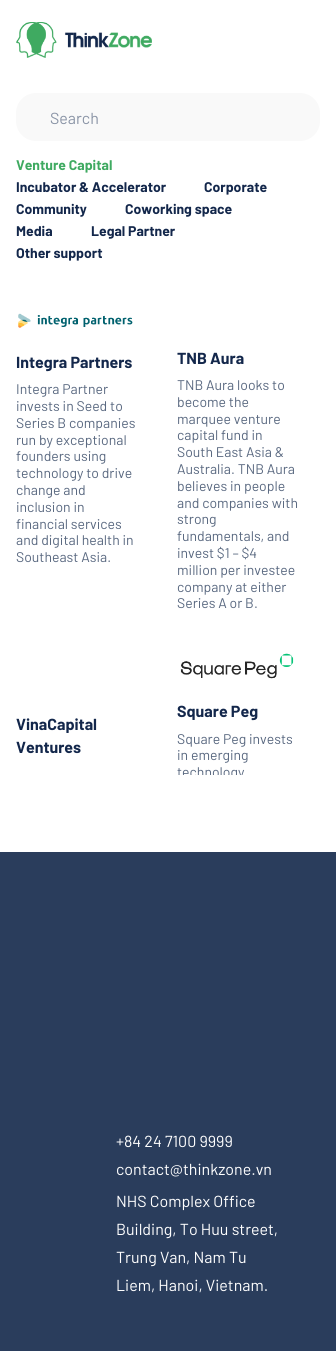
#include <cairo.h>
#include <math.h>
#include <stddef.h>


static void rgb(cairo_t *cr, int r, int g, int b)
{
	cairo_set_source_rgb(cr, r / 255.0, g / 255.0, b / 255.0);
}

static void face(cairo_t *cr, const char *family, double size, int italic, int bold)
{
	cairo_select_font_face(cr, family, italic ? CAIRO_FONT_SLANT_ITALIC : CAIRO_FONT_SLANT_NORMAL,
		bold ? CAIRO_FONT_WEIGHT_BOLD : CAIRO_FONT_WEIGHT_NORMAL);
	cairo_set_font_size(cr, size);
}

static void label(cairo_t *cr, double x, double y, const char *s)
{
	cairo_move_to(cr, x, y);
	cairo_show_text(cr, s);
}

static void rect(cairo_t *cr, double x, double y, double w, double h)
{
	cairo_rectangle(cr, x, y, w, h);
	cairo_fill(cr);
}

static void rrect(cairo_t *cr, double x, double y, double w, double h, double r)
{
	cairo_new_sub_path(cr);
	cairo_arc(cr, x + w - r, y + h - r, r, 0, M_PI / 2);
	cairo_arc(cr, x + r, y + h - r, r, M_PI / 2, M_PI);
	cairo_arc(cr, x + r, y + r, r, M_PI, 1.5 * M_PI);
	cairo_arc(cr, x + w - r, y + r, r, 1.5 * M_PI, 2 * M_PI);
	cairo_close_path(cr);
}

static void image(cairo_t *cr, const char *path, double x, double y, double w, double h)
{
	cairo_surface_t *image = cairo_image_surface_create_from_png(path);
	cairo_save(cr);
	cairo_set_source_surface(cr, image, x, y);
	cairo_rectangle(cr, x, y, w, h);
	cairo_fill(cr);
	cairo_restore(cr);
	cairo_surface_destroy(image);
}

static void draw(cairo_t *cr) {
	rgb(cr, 255, 255, 255);
	cairo_paint(cr);
	image(cr, "image0.png", 16, 22, 136, 36);
	rgb(cr, 249, 249, 249);
	rrect(cr, 16, 93, 304, 48, 20);
	cairo_fill(cr);
	face(cr, "Barlow", 16, 0, 0);
	rgb(cr, 137, 147, 165);
	label(cr, 50, 124, "Search");
	face(cr, "Barlow", 14, 0, 1);
	rgb(cr, 63, 170, 97);
	label(cr, 16, 170, "Venture Capital");
	rgb(cr, 19, 39, 75);
	label(cr, 16, 192, "Incubator & Accelerator");
	label(cr, 204, 192, "Corporate");
	label(cr, 16, 214, "Community");
	label(cr, 125, 214, "Coworking space");
	label(cr, 16, 236, "Media");
	label(cr, 91, 236, "Legal Partner");
	label(cr, 16, 258, "Other support");
	image(cr, "image1.png", 18, 313, 115, 15);
	face(cr, "Barlow", 16, 0, 1);
	label(cr, 16, 368, "Integra Partners");
	face(cr, "Barlow", 14, 0, 0);
	rgb(cr, 89, 104, 128);
	label(cr, 16, 394, "Integra Partner");
	label(cr, 16, 411, "invests in Seed to");
	label(cr, 16, 428, "Series B companies");
	label(cr, 16, 445, "run by exceptional");
	label(cr, 16, 461, "founders using");
	label(cr, 16, 478, "technology to drive");
	label(cr, 16, 495, "change and");
	label(cr, 16, 512, "inclusion in");
	label(cr, 16, 529, "financial services");
	label(cr, 16, 545, "and digital health in");
	label(cr, 16, 562, "Southeast Asia.");
	face(cr, "Barlow", 16, 0, 1);
	rgb(cr, 19, 39, 75);
	label(cr, 177, 364, "TNB Aura");
	face(cr, "Barlow", 14, 0, 0);
	rgb(cr, 89, 104, 128);
	label(cr, 177, 390, "TNB Aura looks to");
	label(cr, 177, 407, "become the");
	label(cr, 177, 424, "marquee venture");
	label(cr, 177, 440, "capital fund in");
	label(cr, 177, 457, "South East Asia &");
	label(cr, 177, 474, "Australia. TNB Aura");
	label(cr, 177, 491, "believes in people");
	label(cr, 177, 508, "and companies with");
	label(cr, 177, 524, "strong");
	label(cr, 177, 541, "fundamentals, and");
	label(cr, 177, 558, "invest $1 – $4");
	label(cr, 177, 575, "million per investee");
	label(cr, 177, 592, "company at either");
	label(cr, 177, 608, "Series A or B.");
	face(cr, "Barlow", 16, 0, 1);
	rgb(cr, 19, 39, 75);
	label(cr, 16, 730, "VinaCapital");
	label(cr, 16, 753, "Ventures");
	image(cr, "image2.png", 180, 653, 114, 26);
	label(cr, 177, 717, "Square Peg");
	face(cr, "Barlow", 14, 0, 0);
	rgb(cr, 89, 104, 128);
	label(cr, 177, 744, "Square Peg invests");
	label(cr, 177, 760, "in emerging");
	cairo_save(cr);
	cairo_rectangle(cr, 16, 305, 302, 470);
	cairo_clip(cr);
	label(cr, 177, 777, "technology");
	cairo_restore(cr);
	rgb(cr, 42, 61, 92);
	rect(cr, 0, 852, 336, 499);
	face(cr, "Barlow", 16, 0, 0);
	rgb(cr, 255, 255, 255);
	label(cr, 116, 1147, "+84 24 7100 9999");
	label(cr, 116, 1175, "contact@thinkzone.vn");
	label(cr, 116, 1207, "NHS Complex Office");
	label(cr, 116, 1235, "Building, To Huu street,");
	label(cr, 116, 1263, "Trung Van, Nam Tu");
	label(cr, 116, 1291, "Liem, Hanoi, Vietnam.");
}

int main(void) {
	cairo_surface_t *surface = cairo_image_surface_create(CAIRO_FORMAT_RGB24, 336, 1351);
	cairo_t *cr = cairo_create(surface);
	cairo_font_options_t *options = cairo_font_options_create();
	cairo_font_options_set_hint_metrics(options, CAIRO_HINT_METRICS_OFF);
	cairo_font_options_set_hint_style(options, CAIRO_HINT_STYLE_NONE);
	cairo_set_font_options(cr, options);
	cairo_set_miter_limit(cr, 4);
	draw(cr);
	cairo_surface_write_to_png(surface, "render.png");
	cairo_font_options_destroy(options);
	cairo_destroy(cr);
	cairo_surface_destroy(surface);
	return 0;
}
